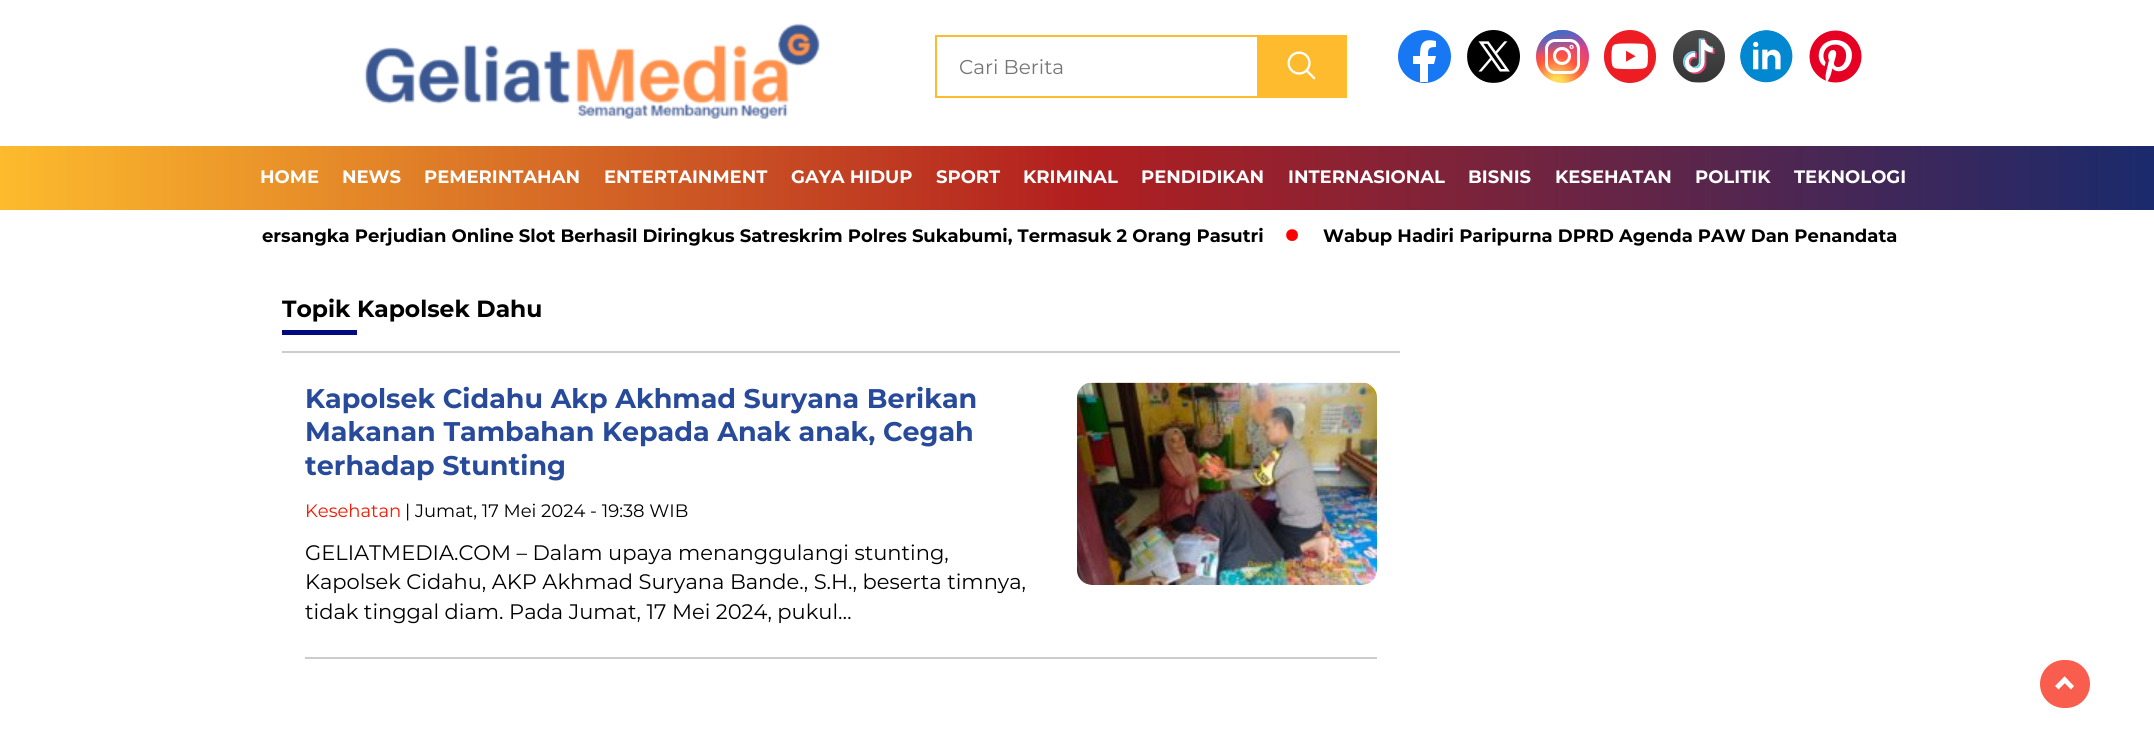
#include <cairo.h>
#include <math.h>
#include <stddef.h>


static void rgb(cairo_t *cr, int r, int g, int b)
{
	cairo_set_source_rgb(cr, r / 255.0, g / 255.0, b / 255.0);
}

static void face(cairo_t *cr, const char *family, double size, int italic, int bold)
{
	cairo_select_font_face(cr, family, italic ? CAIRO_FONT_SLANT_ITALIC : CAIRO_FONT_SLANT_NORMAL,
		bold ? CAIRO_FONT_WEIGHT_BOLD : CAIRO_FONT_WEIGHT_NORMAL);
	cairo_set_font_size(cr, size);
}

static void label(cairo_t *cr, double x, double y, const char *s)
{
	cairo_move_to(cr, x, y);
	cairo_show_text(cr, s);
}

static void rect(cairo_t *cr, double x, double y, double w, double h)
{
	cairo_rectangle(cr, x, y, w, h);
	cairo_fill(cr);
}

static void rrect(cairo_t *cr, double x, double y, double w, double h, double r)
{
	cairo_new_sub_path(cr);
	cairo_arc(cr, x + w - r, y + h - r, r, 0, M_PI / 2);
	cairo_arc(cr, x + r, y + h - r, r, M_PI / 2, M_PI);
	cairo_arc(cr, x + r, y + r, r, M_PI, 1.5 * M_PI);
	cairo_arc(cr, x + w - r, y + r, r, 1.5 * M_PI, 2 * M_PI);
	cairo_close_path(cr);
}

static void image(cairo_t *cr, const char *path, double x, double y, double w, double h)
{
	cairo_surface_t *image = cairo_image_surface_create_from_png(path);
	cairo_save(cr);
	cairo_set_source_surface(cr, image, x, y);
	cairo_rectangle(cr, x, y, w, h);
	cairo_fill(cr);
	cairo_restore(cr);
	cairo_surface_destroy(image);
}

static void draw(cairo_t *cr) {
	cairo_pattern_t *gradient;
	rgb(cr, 255, 255, 255);
	cairo_paint(cr);
	image(cr, "image0.png", 364, 23, 456, 97);
	cairo_rectangle(cr, 936, 36, 322, 61);
	rgb(cr, 253, 187, 45);
	cairo_stroke(cr);
	face(cr, "Montserrat", 20, 0, 0);
	rgb(cr, 117, 117, 117);
	label(cr, 959, 74, "Cari Berita");
	rgb(cr, 253, 187, 45);
	rect(cr, 1259, 35, 88, 63);
	image(cr, "image1.png", 1287, 51, 29, 29);
	rgb(cr, 24, 119, 242);
	cairo_arc(cr, 1424.5, 56.5, 26.5, 0, 2 * M_PI);
	cairo_fill(cr);
	rgb(cr, 255, 255, 255);
	cairo_new_path(cr);
	cairo_move_to(cr, 1434, 64);
	cairo_line_to(cr, 1436, 56);
	cairo_line_to(cr, 1428, 56);
	cairo_curve_to(cr, 1428, 49, 1428, 47, 1436, 47);
	cairo_line_to(cr, 1436, 41);
	cairo_curve_to(cr, 1422, 38, 1420, 44, 1420, 56);
	cairo_line_to(cr, 1413, 56);
	cairo_line_to(cr, 1413, 64);
	cairo_line_to(cr, 1420, 64);
	cairo_line_to(cr, 1420, 82);
	cairo_line_to(cr, 1428, 82);
	cairo_line_to(cr, 1428, 64);
	cairo_close_path(cr);
	cairo_fill(cr);
	image(cr, "image2.png", 1467, 30, 53, 53);
	gradient = cairo_pattern_create_radial(1557, 83, 0, 1557, 83, 53);
	cairo_pattern_add_color_stop_rgba(gradient, 0.1, 1, 0.867, 0.333, 1);
	cairo_pattern_add_color_stop_rgba(gradient, 0.5, 1, 0.329, 0.243, 1);
	cairo_pattern_add_color_stop_rgba(gradient, 1, 0.784, 0.216, 0.671, 1);
	cairo_set_source(cr, gradient);
	cairo_pattern_destroy(gradient);
	cairo_arc(cr, 1562.5, 56.5, 26.5, 0, 2 * M_PI);
	cairo_fill(cr);
	gradient = cairo_pattern_create_linear(1536, 30, 1547, 83);
	cairo_pattern_add_color_stop_rgba(gradient, 0.1, 0.216, 0.443, 0.784, 1);
	cairo_pattern_add_color_stop_rgba(gradient, 0.5, 0.216, 0.443, 0.784, 0);
	cairo_set_source(cr, gradient);
	cairo_pattern_destroy(gradient);
	cairo_arc(cr, 1562.5, 56.5, 26.5, 0, 2 * M_PI);
	cairo_fill(cr);
	rrect(cr, 1546.5, 40.5, 32, 32, 8.5);
	rgb(cr, 255, 255, 255);
	cairo_set_line_width(cr, 3);
	cairo_stroke(cr);
	cairo_arc(cr, 1562, 56, 7.5, 0, 2 * M_PI);
	cairo_set_line_width(cr, 3.1);
	cairo_stroke(cr);
	cairo_arc(cr, 1571.6, 46.9, 0.6, 0, 2 * M_PI);
	cairo_stroke(cr);
	image(cr, "image3.png", 1604, 30, 52, 53);
	image(cr, "image4.png", 1673, 30, 52, 53);
	image(cr, "image5.png", 1740, 30, 53, 53);
	image(cr, "image6.png", 1809, 30, 53, 53);
	gradient = cairo_pattern_create_linear(0, 178, 2154, 178);
	cairo_pattern_add_color_stop_rgba(gradient, 0, 0.992, 0.733, 0.176, 1);
	cairo_pattern_add_color_stop_rgba(gradient, 0.5, 0.698, 0.122, 0.122, 1);
	cairo_pattern_add_color_stop_rgba(gradient, 1, 0.102, 0.165, 0.424, 1);
	cairo_set_source(cr, gradient);
	cairo_pattern_destroy(gradient);
	rect(cr, 0, 146, 2154, 64);
	face(cr, "Montserrat", 18, 0, 1);
	rgb(cr, 255, 255, 255);
	label(cr, 260, 183, "HOME");
	label(cr, 342, 183, "NEWS");
	label(cr, 424, 183, "PEMERINTAHAN");
	label(cr, 604, 183, "ENTERTAINMENT");
	label(cr, 791, 183, "GAYA HIDUP");
	label(cr, 936, 183, "SPORT");
	label(cr, 1023, 183, "KRIMINAL");
	label(cr, 1141, 183, "PENDIDIKAN");
	label(cr, 1288, 183, "INTERNASIONAL");
	label(cr, 1468, 183, "BISNIS");
	label(cr, 1555, 183, "KESEHATAN");
	label(cr, 1695, 183, "POLITIK");
	label(cr, 1794, 183, "TEKNOLOGI");
	rgb(cr, 0, 0, 0);
	label(cr, 262, 242, "ersangka Perjudian Online Slot Berhasil Diringkus Satreskrim Polres Sukabumi, Termasuk 2 Orang Pasutri");
	face(cr, "Montserrat", 60, 0, 1);
	rgb(cr, 255, 0, 0);
	label(cr, 1283, 252, "·");
	face(cr, "Montserrat", 18, 0, 1);
	rgb(cr, 0, 0, 0);
	label(cr, 1323, 242, "Wabup Hadiri Paripurna DPRD Agenda PAW Dan Penandata");
	rgb(cr, 204, 204, 204);
	rect(cr, 282, 351, 1118, 2);
	face(cr, "Montserrat", 23.4, 0, 1);
	rgb(cr, 0, 0, 0);
	label(cr, 282, 317, "Topik Kapolsek Dahu");
	rgb(cr, 1, 10, 128);
	rect(cr, 282, 330, 75, 5);
	rgb(cr, 204, 204, 204);
	rect(cr, 305, 657, 1072, 2);
	face(cr, "Montserrat", 27, 0, 1);
	rgb(cr, 40, 74, 154);
	label(cr, 305, 408, "Kapolsek Cidahu Akp Akhmad Suryana Berikan");
	label(cr, 305, 441, "Makanan Tambahan Kepada Anak anak, Cegah");
	label(cr, 305, 475, "terhadap Stunting");
	image(cr, "image7.png", 1077, 382, 300, 203);
	face(cr, "Montserrat", 18, 0, 0);
	rgb(cr, 245, 23, 0);
	label(cr, 305, 517, "Kesehatan");
	rgb(cr, 0, 0, 0);
	label(cr, 405, 517, "| Jumat, 17 Mei 2024 - 19:38 WIB");
	face(cr, "Montserrat", 21, 0, 0);
	label(cr, 305, 560, "GELIATMEDIA.COM – Dalam upaya menanggulangi stunting,");
	label(cr, 305, 589, "Kapolsek Cidahu, AKP Akhmad Suryana Bande., S.H., beserta timnya,");
	label(cr, 305, 619, "tidak tinggal diam. Pada Jumat, 17 Mei 2024, pukul…");
	rgb(cr, 248, 93, 77);
	rrect(cr, 2040, 660, 50, 48, 24);
	cairo_fill(cr);
	rgb(cr, 255, 255, 255);
	cairo_new_path(cr);
	cairo_move_to(cr, 2058.5, 689.5);
	cairo_line_to(cr, 2055, 686);
	cairo_line_to(cr, 2064.5, 676.5);
	cairo_line_to(cr, 2068, 680);
	cairo_close_path(cr);
	cairo_fill(cr);
	cairo_new_path(cr);
	cairo_move_to(cr, 2071, 689.5);
	cairo_line_to(cr, 2061.5, 680);
	cairo_line_to(cr, 2064.5, 676.5);
	cairo_line_to(cr, 2074, 686);
	cairo_close_path(cr);
	cairo_fill(cr);
}

int main(void) {
	cairo_surface_t *surface = cairo_image_surface_create(CAIRO_FORMAT_RGB24, 2154, 730);
	cairo_t *cr = cairo_create(surface);
	cairo_font_options_t *options = cairo_font_options_create();
	cairo_font_options_set_hint_metrics(options, CAIRO_HINT_METRICS_OFF);
	cairo_font_options_set_hint_style(options, CAIRO_HINT_STYLE_NONE);
	cairo_set_font_options(cr, options);
	cairo_set_miter_limit(cr, 4);
	draw(cr);
	cairo_surface_write_to_png(surface, "render.png");
	cairo_font_options_destroy(options);
	cairo_destroy(cr);
	cairo_surface_destroy(surface);
	return 0;
}
